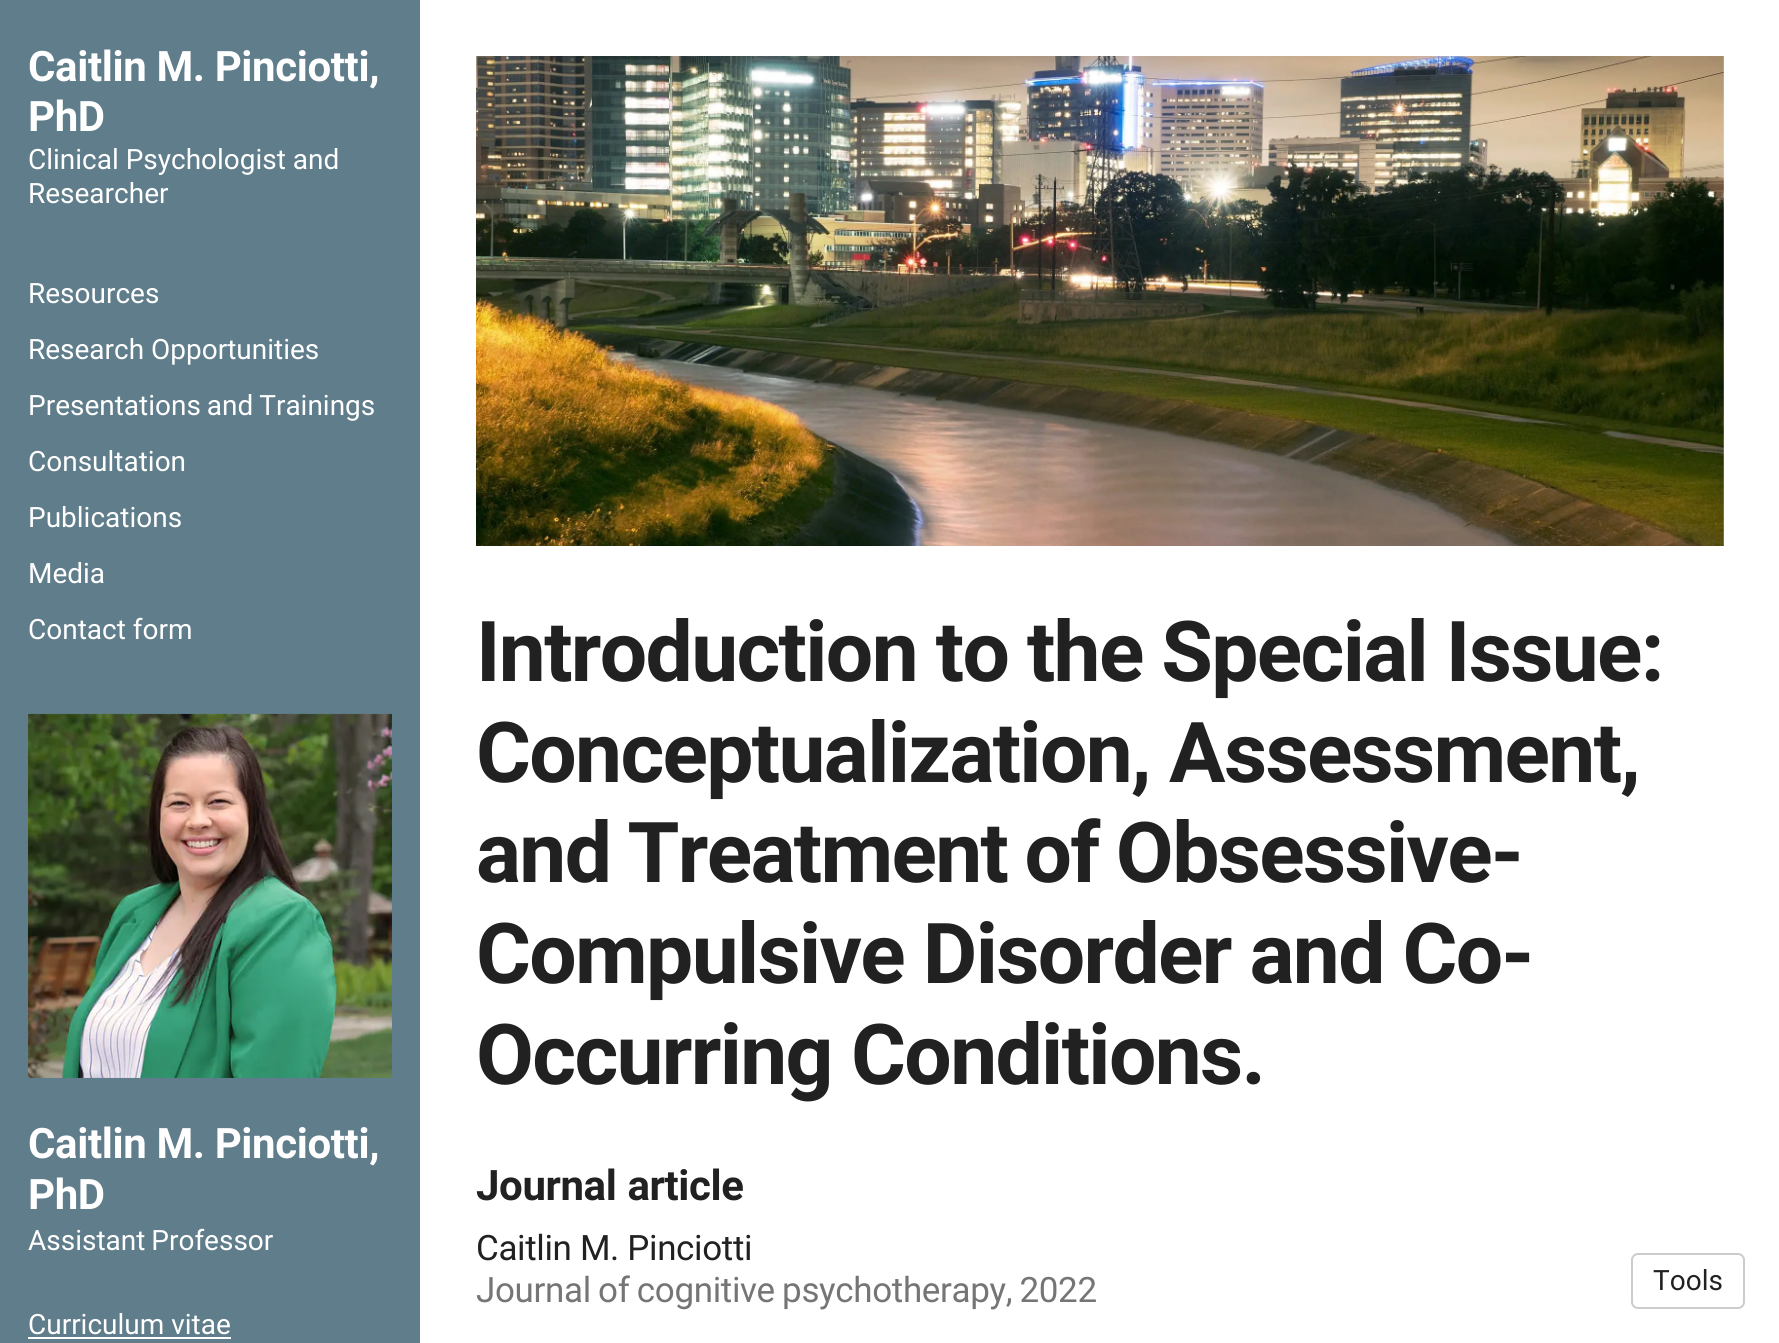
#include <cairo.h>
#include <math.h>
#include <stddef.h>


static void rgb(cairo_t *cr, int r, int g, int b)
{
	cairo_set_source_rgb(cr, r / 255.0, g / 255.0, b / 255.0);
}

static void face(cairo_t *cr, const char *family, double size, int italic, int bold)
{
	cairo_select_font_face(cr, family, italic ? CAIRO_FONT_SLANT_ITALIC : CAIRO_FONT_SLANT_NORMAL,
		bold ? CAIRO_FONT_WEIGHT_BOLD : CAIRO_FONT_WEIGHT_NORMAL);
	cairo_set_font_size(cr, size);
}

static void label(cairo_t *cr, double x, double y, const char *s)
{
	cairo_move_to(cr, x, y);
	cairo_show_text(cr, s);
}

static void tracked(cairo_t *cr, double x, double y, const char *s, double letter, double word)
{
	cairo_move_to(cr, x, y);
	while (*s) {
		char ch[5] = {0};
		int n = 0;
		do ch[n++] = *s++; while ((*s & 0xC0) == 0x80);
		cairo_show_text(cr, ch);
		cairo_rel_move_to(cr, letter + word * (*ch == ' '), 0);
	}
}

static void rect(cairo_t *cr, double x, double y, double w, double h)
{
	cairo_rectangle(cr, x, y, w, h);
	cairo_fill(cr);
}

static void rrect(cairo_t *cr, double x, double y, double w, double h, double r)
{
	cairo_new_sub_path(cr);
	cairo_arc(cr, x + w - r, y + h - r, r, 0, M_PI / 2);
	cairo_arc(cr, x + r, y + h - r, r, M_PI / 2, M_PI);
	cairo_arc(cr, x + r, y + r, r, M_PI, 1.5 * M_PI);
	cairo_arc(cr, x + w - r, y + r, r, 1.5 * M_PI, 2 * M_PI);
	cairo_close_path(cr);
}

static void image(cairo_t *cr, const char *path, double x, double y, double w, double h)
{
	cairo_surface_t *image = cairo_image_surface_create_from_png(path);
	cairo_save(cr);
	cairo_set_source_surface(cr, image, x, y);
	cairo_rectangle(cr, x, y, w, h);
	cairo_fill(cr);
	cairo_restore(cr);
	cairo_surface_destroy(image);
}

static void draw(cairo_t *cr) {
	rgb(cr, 255, 255, 255);
	cairo_paint(cr);
	rgb(cr, 96, 125, 139);
	rect(cr, 0, 0, 420, 1343);
	face(cr, "Roboto", 42, 0, 1);
	rgb(cr, 255, 255, 255);
	tracked(cr, 28, 81, "Caitlin M. Pinciotti,", -0.4, 0);
	tracked(cr, 28, 131, "PhD", -0.4, 0);
	face(cr, "Roboto", 28, 0, 0);
	label(cr, 28, 169, "Clinical Psychologist and");
	label(cr, 28, 203, "Researcher");
	label(cr, 28, 303, "Resources");
	label(cr, 28, 359, "Research Opportunities");
	tracked(cr, 28, 415, "Presentations and Trainings", 0, -1);
	label(cr, 28, 471, "Consultation");
	label(cr, 28, 527, "Publications");
	label(cr, 28, 583, "Media");
	label(cr, 28, 639, "Contact form");
	image(cr, "image0.png", 28, 713, 364, 365);
	face(cr, "Roboto", 42, 0, 1);
	tracked(cr, 28, 1158, "Caitlin M. Pinciotti,", -0.4, 0);
	tracked(cr, 28, 1209, "PhD", -0.4, 0);
	face(cr, "Roboto", 28, 0, 0);
	tracked(cr, 28, 1250, "Assistant Professor", 0, -1);
	label(cr, 28, 1334, "Curriculum vitae");
	rect(cr, 28, 1337, 203, 2);
	image(cr, "image2.png", 1723, 56, 1, 490);
	image(cr, "image1.png", 476, 56, 1248, 490);
	face(cr, "Roboto", 84, 0, 1);
	rgb(cr, 33, 33, 33);
	tracked(cr, 476, 681, "Introduction to the Special Issue:", -1.7, -0.5);
	tracked(cr, 476, 782, "Conceptualization, Assessment,", -1.7, 0);
	tracked(cr, 476, 882, "and Treatment of Obsessive-", -1.7, -2);
	tracked(cr, 476, 983, "Compulsive Disorder and Co-", -1.7, -0.5);
	tracked(cr, 476, 1084, "Occurring Conditions.", -1.7, 0);
	face(cr, "Roboto", 42, 0, 1);
	tracked(cr, 476, 1200, "Journal article", -0.4, 1);
	face(cr, "Roboto", 35, 0, 0);
	tracked(cr, 476, 1260, "Caitlin M. Pinciotti", -0.35, 0);
	rgb(cr, 117, 117, 117);
	tracked(cr, 476, 1302, "Journal of cognitive psychotherapy, 2022", -0.35, -1);
	rrect(cr, 1632, 1254, 112, 54, 6);
	rgb(cr, 204, 204, 204);
	cairo_stroke(cr);
	face(cr, "Roboto", 28, 0, 0);
	rgb(cr, 33, 33, 33);
	label(cr, 1653, 1290, "Tools");
}

int main(void) {
	cairo_surface_t *surface = cairo_image_surface_create(CAIRO_FORMAT_RGB24, 1779, 1343);
	cairo_t *cr = cairo_create(surface);
	cairo_font_options_t *options = cairo_font_options_create();
	cairo_font_options_set_hint_metrics(options, CAIRO_HINT_METRICS_OFF);
	cairo_font_options_set_hint_style(options, CAIRO_HINT_STYLE_NONE);
	cairo_set_font_options(cr, options);
	cairo_set_miter_limit(cr, 4);
	draw(cr);
	cairo_surface_write_to_png(surface, "render.png");
	cairo_font_options_destroy(options);
	cairo_destroy(cr);
	cairo_surface_destroy(surface);
	return 0;
}
